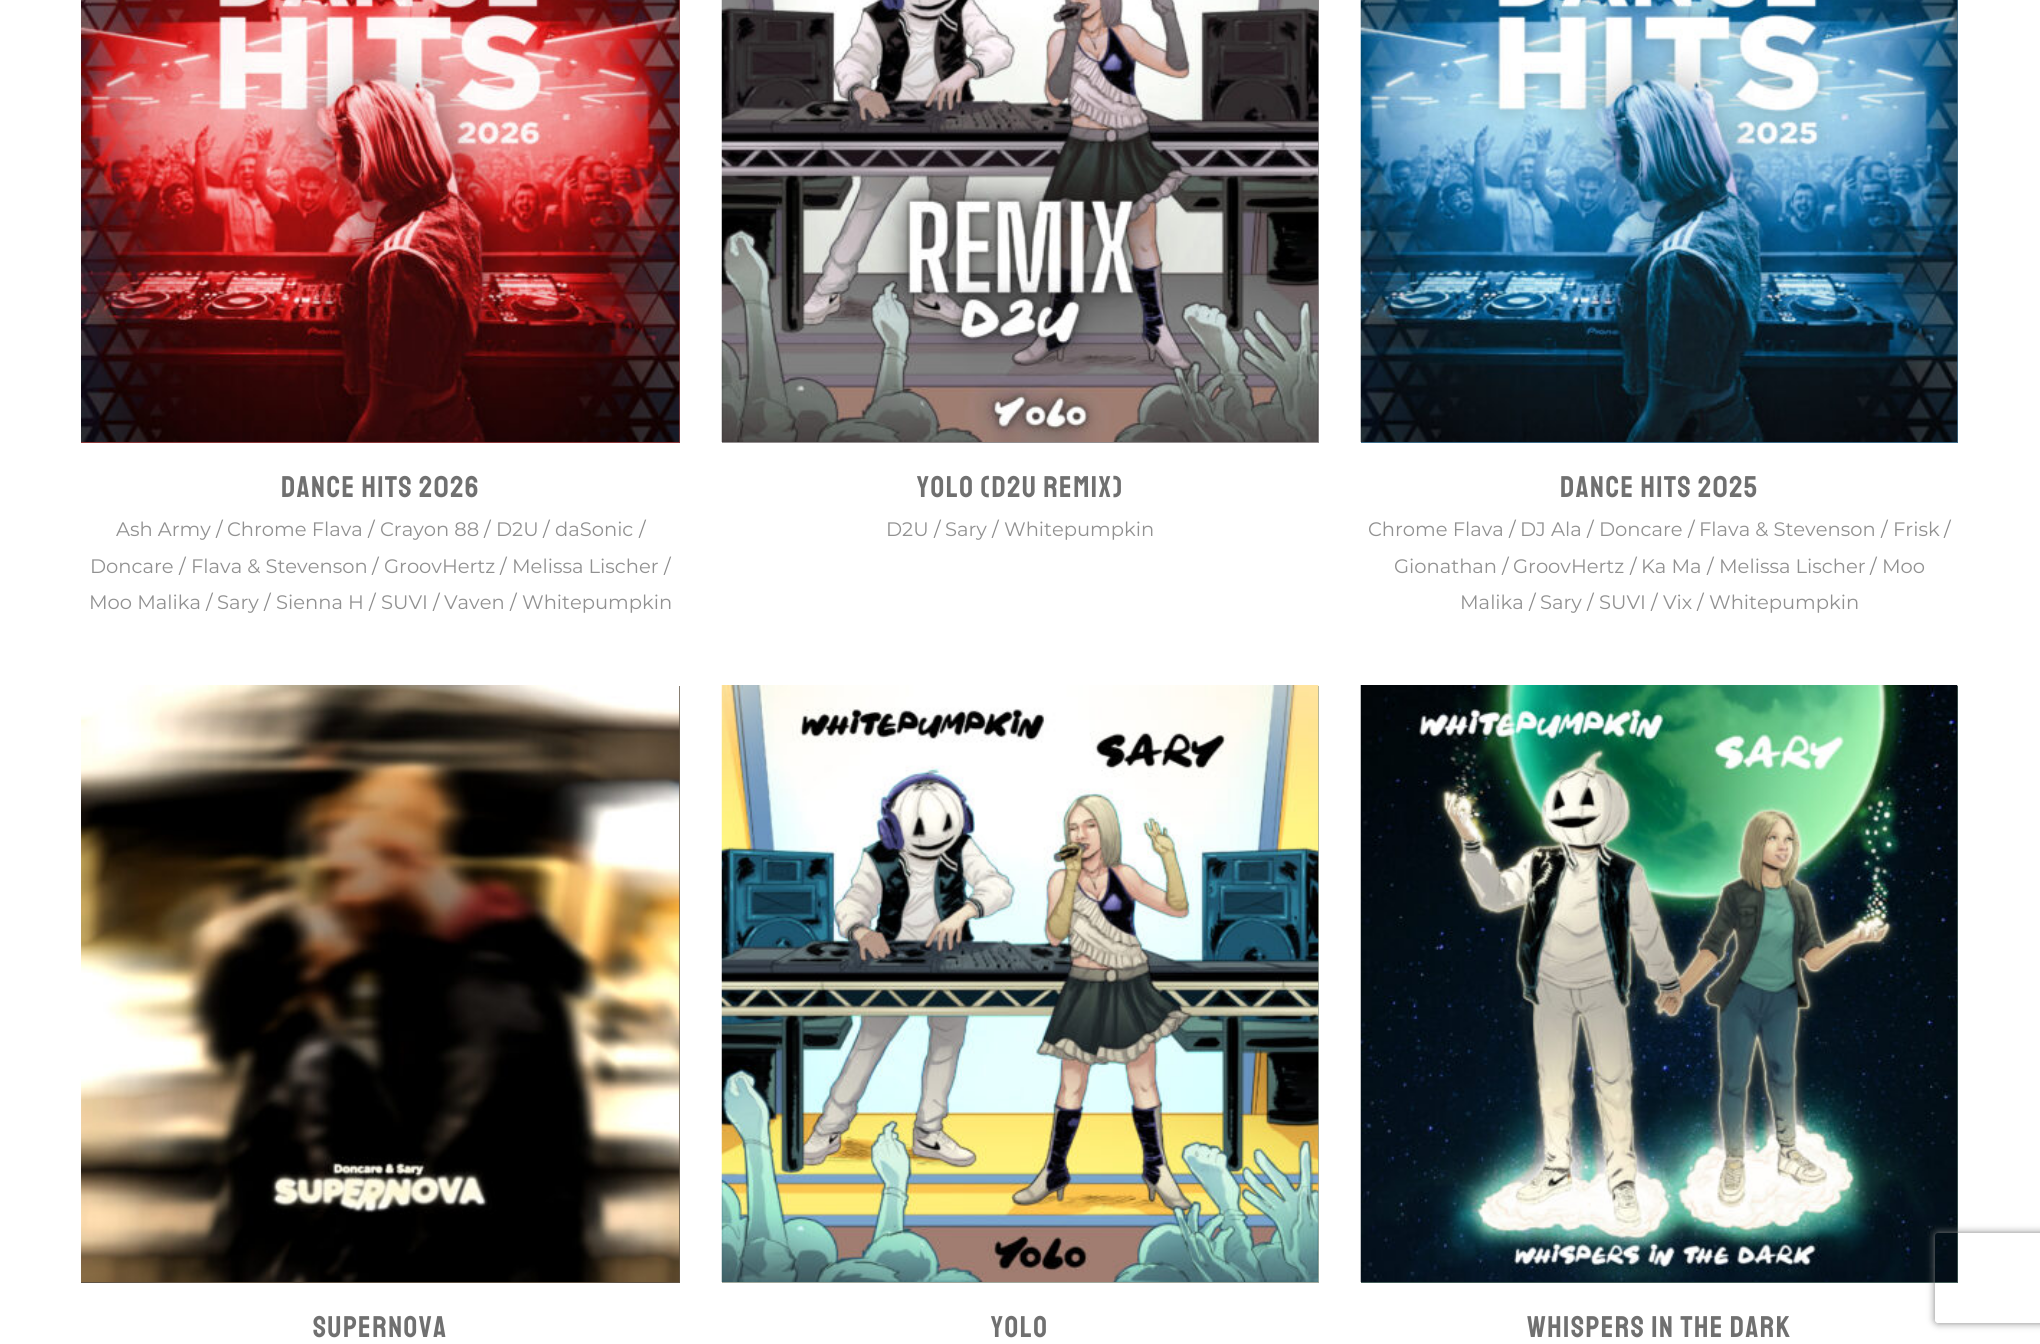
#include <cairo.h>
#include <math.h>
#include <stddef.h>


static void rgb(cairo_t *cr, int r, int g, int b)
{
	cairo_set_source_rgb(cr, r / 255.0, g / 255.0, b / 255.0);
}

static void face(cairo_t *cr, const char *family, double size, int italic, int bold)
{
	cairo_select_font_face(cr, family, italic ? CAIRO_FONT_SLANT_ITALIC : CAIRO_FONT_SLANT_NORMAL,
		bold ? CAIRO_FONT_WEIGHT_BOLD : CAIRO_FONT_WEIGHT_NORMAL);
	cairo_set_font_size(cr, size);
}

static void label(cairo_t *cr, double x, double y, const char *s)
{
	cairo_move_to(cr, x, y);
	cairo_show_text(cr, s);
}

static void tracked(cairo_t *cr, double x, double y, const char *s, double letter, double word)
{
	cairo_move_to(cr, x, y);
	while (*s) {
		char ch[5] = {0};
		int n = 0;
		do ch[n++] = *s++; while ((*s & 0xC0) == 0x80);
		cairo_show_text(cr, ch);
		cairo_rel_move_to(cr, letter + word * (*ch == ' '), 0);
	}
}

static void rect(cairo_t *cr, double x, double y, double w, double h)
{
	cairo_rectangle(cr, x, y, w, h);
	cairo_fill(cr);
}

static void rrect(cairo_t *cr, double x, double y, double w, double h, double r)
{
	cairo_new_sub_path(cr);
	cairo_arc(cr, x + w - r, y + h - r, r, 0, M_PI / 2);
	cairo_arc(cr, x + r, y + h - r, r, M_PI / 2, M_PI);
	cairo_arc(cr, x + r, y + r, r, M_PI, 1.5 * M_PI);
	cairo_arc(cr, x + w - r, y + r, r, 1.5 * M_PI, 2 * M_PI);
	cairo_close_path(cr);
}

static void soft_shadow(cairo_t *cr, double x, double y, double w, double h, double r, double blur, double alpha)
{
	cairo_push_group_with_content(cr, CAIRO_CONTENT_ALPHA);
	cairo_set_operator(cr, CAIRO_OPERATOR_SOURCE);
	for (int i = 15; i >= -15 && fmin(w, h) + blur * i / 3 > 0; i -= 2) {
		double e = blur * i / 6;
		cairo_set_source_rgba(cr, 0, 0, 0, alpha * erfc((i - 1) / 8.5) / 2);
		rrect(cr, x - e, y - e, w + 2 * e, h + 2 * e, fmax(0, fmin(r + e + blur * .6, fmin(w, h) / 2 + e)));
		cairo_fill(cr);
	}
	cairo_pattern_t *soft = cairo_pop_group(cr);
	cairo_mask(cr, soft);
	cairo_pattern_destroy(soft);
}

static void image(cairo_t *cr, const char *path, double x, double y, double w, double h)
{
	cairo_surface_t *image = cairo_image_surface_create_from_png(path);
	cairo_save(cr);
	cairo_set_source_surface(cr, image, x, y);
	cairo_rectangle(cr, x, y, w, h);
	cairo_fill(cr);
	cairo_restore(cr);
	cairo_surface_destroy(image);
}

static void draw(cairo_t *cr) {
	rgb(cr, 255, 255, 255);
	cairo_paint(cr);
	rgb(cr, 141, 58, 59);
	rect(cr, 81, 0, 599, 443);
	image(cr, "image0.png", 81, 0, 599, 442);
	face(cr, "Staatliches", 30, 0, 0);
	rgb(cr, 112, 112, 112);
	tracked(cr, 281, 497, "DANCE HITS 2026", 1.5, 0);
	face(cr, "Montserrat", 19.5, 0, 0);
	rgb(cr, 145, 145, 145);
	label(cr, 116, 536, "Ash Army");
	rgb(cr, 139, 139, 139);
	label(cr, 216, 536, "/");
	rgb(cr, 145, 145, 145);
	label(cr, 227, 536, "Chrome Flava");
	rgb(cr, 139, 139, 139);
	label(cr, 368, 536, "/");
	rgb(cr, 145, 145, 145);
	label(cr, 380, 536, "Crayon 88");
	rgb(cr, 139, 139, 139);
	label(cr, 484, 536, "/");
	rgb(cr, 145, 145, 145);
	label(cr, 496, 536, "D2U");
	rgb(cr, 139, 139, 139);
	label(cr, 543, 536, "/");
	rgb(cr, 145, 145, 145);
	label(cr, 555, 536, "daSonic");
	rgb(cr, 139, 139, 139);
	label(cr, 639, 536, "/");
	rgb(cr, 145, 145, 145);
	label(cr, 90, 573, "Doncare");
	rgb(cr, 139, 139, 139);
	label(cr, 179, 573, "/");
	rgb(cr, 145, 145, 145);
	label(cr, 191, 573, "Flava & Stevenson");
	rgb(cr, 139, 139, 139);
	label(cr, 372, 573, "/");
	rgb(cr, 145, 145, 145);
	label(cr, 384, 573, "GroovHertz");
	rgb(cr, 139, 139, 139);
	label(cr, 500, 573, "/");
	rgb(cr, 145, 145, 145);
	label(cr, 512, 573, "Melissa Lischer");
	rgb(cr, 139, 139, 139);
	label(cr, 664, 573, "/");
	rgb(cr, 145, 145, 145);
	label(cr, 89, 609, "Moo Malika");
	rgb(cr, 139, 139, 139);
	label(cr, 206, 609, "/");
	rgb(cr, 145, 145, 145);
	label(cr, 217, 609, "Sary");
	rgb(cr, 139, 139, 139);
	label(cr, 264, 609, "/");
	rgb(cr, 145, 145, 145);
	label(cr, 276, 609, "Sienna H");
	rgb(cr, 139, 139, 139);
	label(cr, 369, 609, "/");
	rgb(cr, 145, 145, 145);
	label(cr, 381, 609, "SUVI");
	rgb(cr, 139, 139, 139);
	label(cr, 433, 609, "/");
	rgb(cr, 145, 145, 145);
	label(cr, 444, 609, "Vaven");
	rgb(cr, 139, 139, 139);
	label(cr, 510, 609, "/");
	rgb(cr, 145, 145, 145);
	label(cr, 522, 609, "Whitepumpkin");
	rgb(cr, 146, 142, 143);
	rect(cr, 722, 0, 597, 443);
	image(cr, "image1.png", 721, 0, 598, 442);
	face(cr, "Staatliches", 30, 0, 0);
	rgb(cr, 112, 112, 112);
	tracked(cr, 917, 497, "YOLO (D2U REMIX)", 1.5, 0);
	face(cr, "Montserrat", 19.5, 0, 0);
	rgb(cr, 145, 145, 145);
	label(cr, 886, 536, "D2U");
	rgb(cr, 139, 139, 139);
	label(cr, 934, 536, "/");
	rgb(cr, 145, 145, 145);
	label(cr, 945, 536, "Sary");
	rgb(cr, 139, 139, 139);
	label(cr, 992, 536, "/");
	rgb(cr, 145, 145, 145);
	label(cr, 1004, 536, "Whitepumpkin");
	rgb(cr, 61, 109, 138);
	rect(cr, 1361, 0, 597, 443);
	image(cr, "image2.png", 1360, 0, 598, 442);
	face(cr, "Staatliches", 30, 0, 0);
	rgb(cr, 112, 112, 112);
	tracked(cr, 1560, 497, "DANCE HITS 2025", 1.5, 0);
	face(cr, "Montserrat", 19.5, 0, 0);
	rgb(cr, 145, 145, 145);
	label(cr, 1368, 536, "Chrome Flava");
	rgb(cr, 139, 139, 139);
	label(cr, 1509, 536, "/");
	rgb(cr, 145, 145, 145);
	label(cr, 1520, 536, "DJ Ala");
	rgb(cr, 139, 139, 139);
	label(cr, 1587, 536, "/");
	rgb(cr, 145, 145, 145);
	label(cr, 1599, 536, "Doncare");
	rgb(cr, 139, 139, 139);
	label(cr, 1688, 536, "/");
	rgb(cr, 145, 145, 145);
	label(cr, 1699, 536, "Flava & Stevenson");
	rgb(cr, 139, 139, 139);
	label(cr, 1881, 536, "/");
	rgb(cr, 145, 145, 145);
	label(cr, 1893, 536, "Frisk");
	rgb(cr, 139, 139, 139);
	label(cr, 1944, 536, "/");
	rgb(cr, 145, 145, 145);
	label(cr, 1394, 573, "Gionathan");
	rgb(cr, 139, 139, 139);
	label(cr, 1502, 573, "/");
	rgb(cr, 145, 145, 145);
	label(cr, 1513, 573, "GroovHertz");
	rgb(cr, 139, 139, 139);
	label(cr, 1630, 573, "/");
	rgb(cr, 145, 145, 145);
	label(cr, 1641, 573, "Ka Ma");
	rgb(cr, 139, 139, 139);
	label(cr, 1707, 573, "/");
	rgb(cr, 145, 145, 145);
	label(cr, 1719, 573, "Melissa Lischer");
	rgb(cr, 139, 139, 139);
	label(cr, 1870, 573, "/");
	rgb(cr, 145, 145, 145);
	label(cr, 1882, 573, "Moo");
	label(cr, 1460, 609, "Malika");
	rgb(cr, 139, 139, 139);
	label(cr, 1529, 609, "/");
	rgb(cr, 145, 145, 145);
	label(cr, 1540, 609, "Sary");
	rgb(cr, 139, 139, 139);
	label(cr, 1587, 609, "/");
	rgb(cr, 145, 145, 145);
	label(cr, 1599, 609, "SUVI");
	rgb(cr, 139, 139, 139);
	label(cr, 1651, 609, "/");
	rgb(cr, 145, 145, 145);
	label(cr, 1663, 609, "Vix");
	rgb(cr, 139, 139, 139);
	label(cr, 1697, 609, "/");
	rgb(cr, 145, 145, 145);
	label(cr, 1709, 609, "Whitepumpkin");
	rgb(cr, 95, 83, 67);
	rect(cr, 81, 686, 599, 597);
	image(cr, "image3.png", 81, 685, 599, 597);
	face(cr, "Staatliches", 30, 0, 0);
	rgb(cr, 112, 112, 112);
	tracked(cr, 313, 1337, "SUPERNOVA", 1.5, 0);
	rgb(cr, 161, 169, 156);
	rect(cr, 722, 686, 597, 597);
	image(cr, "image4.png", 721, 685, 598, 597);
	rgb(cr, 112, 112, 112);
	tracked(cr, 991, 1337, "YOLO", 1.5, 0);
	rgb(cr, 68, 94, 88);
	rect(cr, 1361, 686, 597, 597);
	image(cr, "image5.png", 1360, 685, 598, 597);
	rgb(cr, 112, 112, 112);
	tracked(cr, 1527, 1337, "WHISPERS IN THE DARK", 1.5, 0);
	cairo_save(cr);
	cairo_set_fill_rule(cr, CAIRO_FILL_RULE_EVEN_ODD);
	cairo_new_path(cr);
	cairo_move_to(cr, 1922, 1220);
	cairo_line_to(cr, 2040, 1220);
	cairo_line_to(cr, 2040, 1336);
	cairo_line_to(cr, 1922, 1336);
	cairo_close_path(cr);
	cairo_move_to(cr, 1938, 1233);
	cairo_line_to(cr, 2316, 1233);
	cairo_curve_to(cr, 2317.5, 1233, 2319, 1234.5, 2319, 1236);
	cairo_line_to(cr, 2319, 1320);
	cairo_curve_to(cr, 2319, 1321.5, 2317.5, 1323, 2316, 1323);
	cairo_line_to(cr, 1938, 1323);
	cairo_curve_to(cr, 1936.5, 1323, 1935, 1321.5, 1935, 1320);
	cairo_line_to(cr, 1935, 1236);
	cairo_curve_to(cr, 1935, 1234.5, 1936.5, 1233, 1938, 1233);
	cairo_close_path(cr);
	cairo_clip(cr);
	rgb(cr, 128, 128, 128);
	soft_shadow(cr, 1935, 1233, 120, 90, 3, 4, 1);
	cairo_restore(cr);
}

int main(void) {
	cairo_surface_t *surface = cairo_image_surface_create(CAIRO_FORMAT_RGB24, 2040, 1344);
	cairo_t *cr = cairo_create(surface);
	cairo_font_options_t *options = cairo_font_options_create();
	cairo_font_options_set_hint_metrics(options, CAIRO_HINT_METRICS_OFF);
	cairo_font_options_set_hint_style(options, CAIRO_HINT_STYLE_NONE);
	cairo_set_font_options(cr, options);
	cairo_set_miter_limit(cr, 4);
	draw(cr);
	cairo_surface_write_to_png(surface, "render.png");
	cairo_font_options_destroy(options);
	cairo_destroy(cr);
	cairo_surface_destroy(surface);
	return 0;
}
